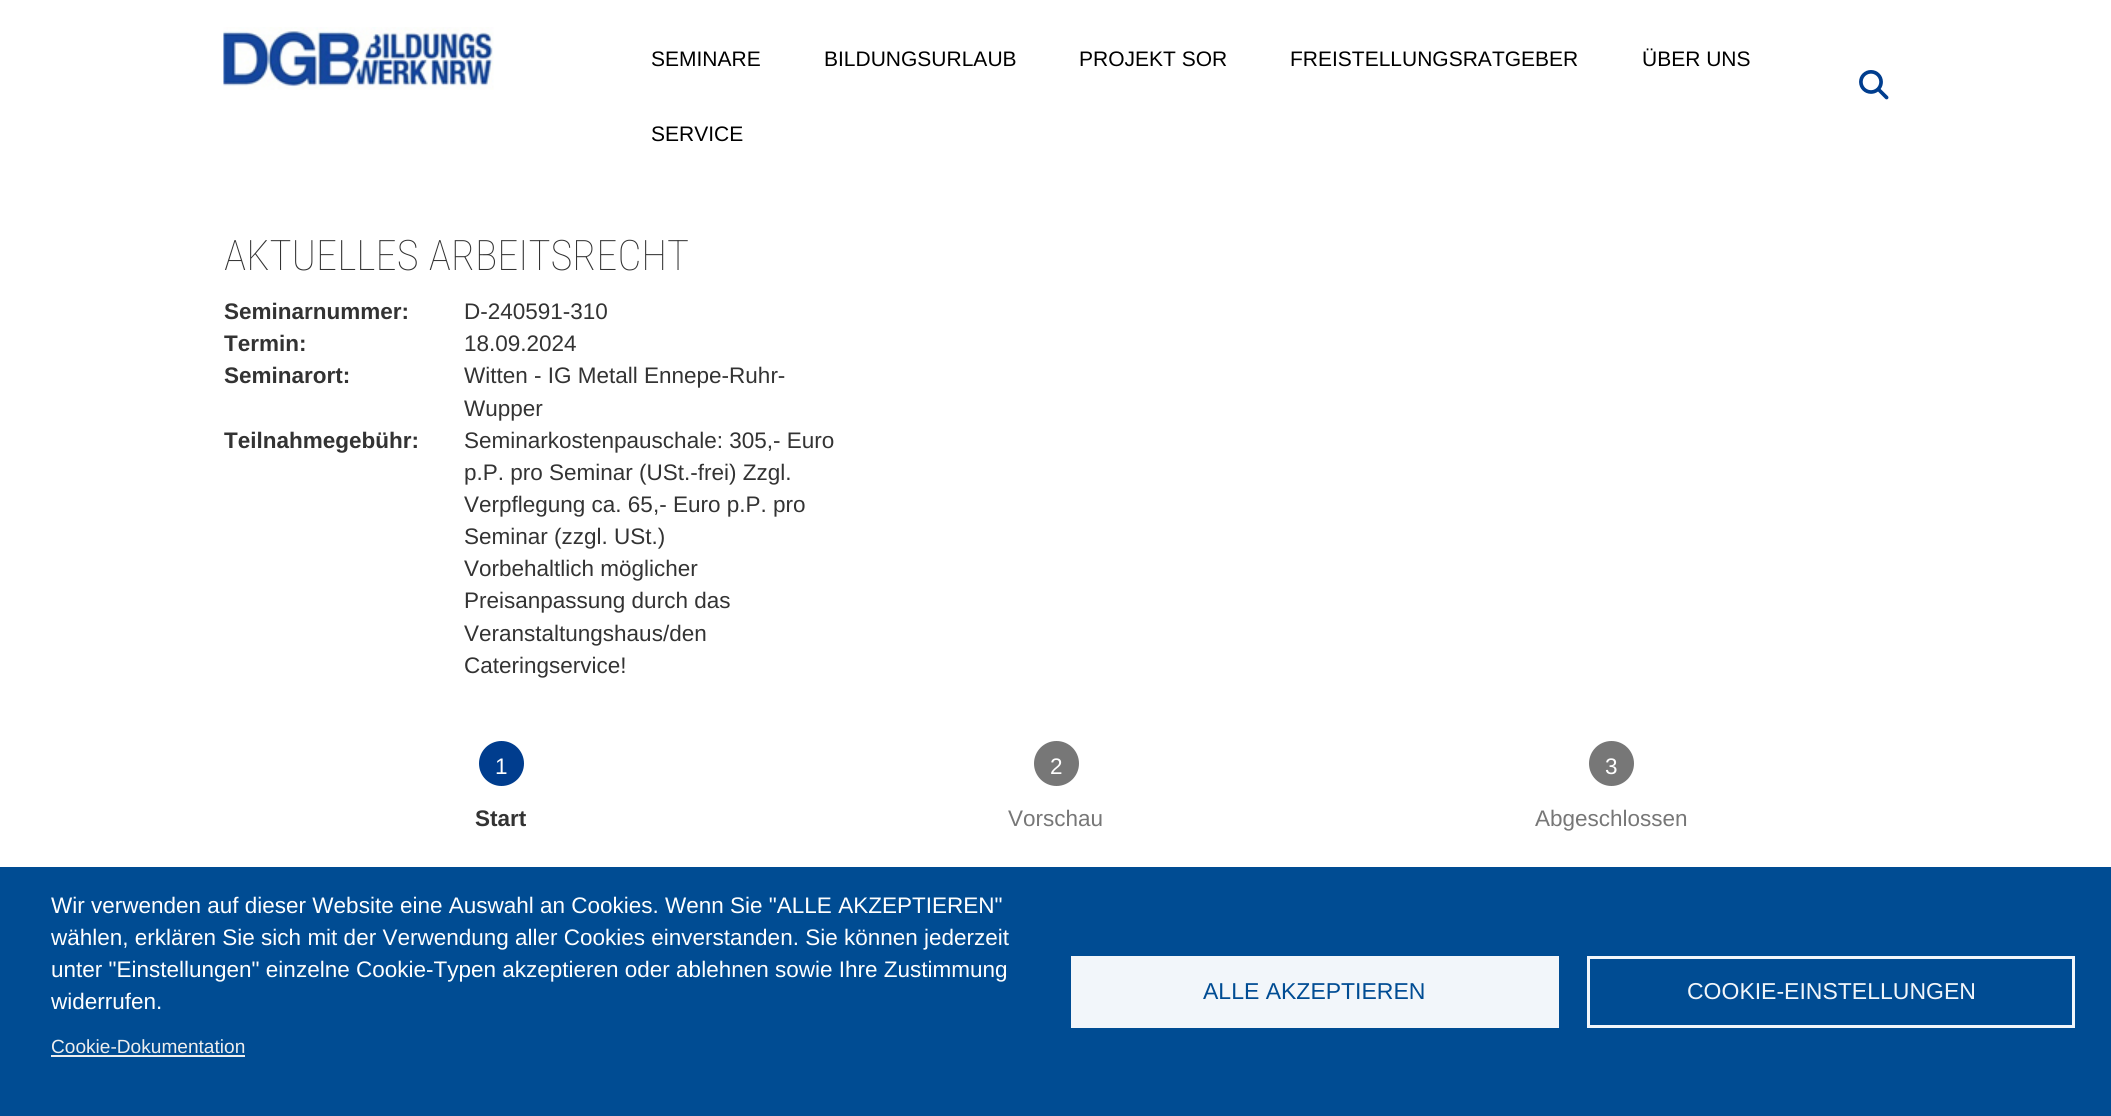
#include <cairo.h>
#include <math.h>
#include <stddef.h>


static void rgb(cairo_t *cr, int r, int g, int b)
{
	cairo_set_source_rgb(cr, r / 255.0, g / 255.0, b / 255.0);
}

static void face(cairo_t *cr, const char *family, double size, int italic, int bold)
{
	cairo_select_font_face(cr, family, italic ? CAIRO_FONT_SLANT_ITALIC : CAIRO_FONT_SLANT_NORMAL,
		bold ? CAIRO_FONT_WEIGHT_BOLD : CAIRO_FONT_WEIGHT_NORMAL);
	cairo_set_font_size(cr, size);
}

static void label(cairo_t *cr, double x, double y, const char *s)
{
	cairo_move_to(cr, x, y);
	cairo_show_text(cr, s);
}

static void tracked(cairo_t *cr, double x, double y, const char *s, double letter, double word)
{
	cairo_move_to(cr, x, y);
	while (*s) {
		char ch[5] = {0};
		int n = 0;
		do ch[n++] = *s++; while ((*s & 0xC0) == 0x80);
		cairo_show_text(cr, ch);
		cairo_rel_move_to(cr, letter + word * (*ch == ' '), 0);
	}
}

static void rect(cairo_t *cr, double x, double y, double w, double h)
{
	cairo_rectangle(cr, x, y, w, h);
	cairo_fill(cr);
}

static void image(cairo_t *cr, const char *path, double x, double y, double w, double h)
{
	cairo_surface_t *image = cairo_image_surface_create_from_png(path);
	cairo_save(cr);
	cairo_set_source_surface(cr, image, x, y);
	cairo_rectangle(cr, x, y, w, h);
	cairo_fill(cr);
	cairo_restore(cr);
	cairo_surface_destroy(image);
}

static void draw(cairo_t *cr) {
	rgb(cr, 255, 255, 255);
	cairo_paint(cr);
	image(cr, "image0.png", 223, 27, 271, 63);
	face(cr, "Liberation Sans", 21, 0, 0);
	rgb(cr, 0, 0, 0);
	label(cr, 651, 66, "SEMINARE");
	label(cr, 824, 66, "BILDUNGSURLAUB");
	label(cr, 1079, 66, "PROJEKT SOR");
	label(cr, 1290, 66, "FREISTELLUNGSRATGEBER");
	label(cr, 1642, 66, "ÜBER UNS");
	label(cr, 651, 141, "SERVICE");
	image(cr, "image1.png", 1859, 70, 30, 30);
	face(cr, "Roboto Condensed Thin", 42, 0, 0);
	rgb(cr, 51, 51, 51);
	tracked(cr, 224, 270, "AKTUELLES ARBEITSRECHT", 0, 1);
	face(cr, "Liberation Sans", 22.5, 0, 1);
	label(cr, 224, 319, "Seminarnummer:");
	face(cr, "Liberation Sans", 22.5, 0, 0);
	label(cr, 464, 319, "D-240591-310");
	face(cr, "Liberation Sans", 22.5, 0, 1);
	label(cr, 224, 351, "Termin:");
	face(cr, "Liberation Sans", 22.5, 0, 0);
	label(cr, 464, 351, "18.09.2024");
	face(cr, "Liberation Sans", 22.5, 0, 1);
	label(cr, 224, 383, "Seminarort:");
	face(cr, "Liberation Sans", 22.5, 0, 0);
	label(cr, 464, 383, "Witten - IG Metall Ennepe-Ruhr-");
	label(cr, 464, 416, "Wupper");
	face(cr, "Liberation Sans", 22.5, 0, 1);
	label(cr, 224, 448, "Teilnahmegebühr:");
	face(cr, "Liberation Sans", 22.5, 0, 0);
	label(cr, 464, 448, "Seminarkostenpauschale: 305,- Euro");
	label(cr, 464, 480, "p.P. pro Seminar (USt.-frei) Zzgl.");
	label(cr, 464, 512, "Verpflegung ca. 65,- Euro p.P. pro");
	label(cr, 464, 544, "Seminar (zzgl. USt.)");
	label(cr, 464, 576, "Vorbehaltlich möglicher");
	label(cr, 464, 608, "Preisanpassung durch das");
	label(cr, 464, 641, "Veranstaltungshaus/den");
	label(cr, 464, 673, "Cateringservice!");
	rgb(cr, 0, 61, 142);
	cairo_new_path(cr);
	cairo_arc(cr, 501.5, 763.5, 22.5, 0, 2 * M_PI);
	cairo_fill(cr);
	rgb(cr, 255, 255, 255);
	label(cr, 495, 774, "1");
	face(cr, "Liberation Sans", 22.5, 0, 1);
	rgb(cr, 51, 51, 51);
	label(cr, 475, 826, "Start");
	rgb(cr, 119, 119, 119);
	cairo_new_path(cr);
	cairo_arc(cr, 1056.5, 763.5, 22.5, 0, 2 * M_PI);
	cairo_fill(cr);
	face(cr, "Liberation Sans", 22.5, 0, 0);
	rgb(cr, 255, 255, 255);
	label(cr, 1050, 774, "2");
	rgb(cr, 119, 119, 119);
	label(cr, 1008, 826, "Vorschau");
	cairo_new_path(cr);
	cairo_arc(cr, 1611.5, 763.5, 22.5, 0, 2 * M_PI);
	cairo_fill(cr);
	rgb(cr, 255, 255, 255);
	label(cr, 1605, 774, "3");
	rgb(cr, 119, 119, 119);
	label(cr, 1535, 826, "Abgeschlossen");
	rgb(cr, 0, 76, 147);
	rect(cr, 0, 867, 2111, 249);
	rgb(cr, 255, 255, 255);
	label(cr, 51, 913, "Wir verwenden auf dieser Website eine Auswahl an Cookies. Wenn Sie \"ALLE AKZEPTIEREN\"");
	label(cr, 51, 945, "wählen, erklären Sie sich mit der Verwendung aller Cookies einverstanden. Sie können jederzeit");
	label(cr, 51, 977, "unter \"Einstellungen\" einzelne Cookie-Typen akzeptieren oder ablehnen sowie Ihre Zustimmung");
	label(cr, 51, 1009, "widerrufen.");
	face(cr, "Liberation Sans", 19.1, 0, 0);
	rgb(cr, 238, 238, 238);
	label(cr, 51, 1053, "Cookie-Dokumentation");
	rect(cr, 51, 1055, 194, 2);
	rgb(cr, 242, 246, 250);
	rect(cr, 1071, 956, 488, 72);
	face(cr, "Liberation Sans", 23, 0, 0);
	rgb(cr, 0, 76, 147);
	label(cr, 1203, 999, "ALLE AKZEPTIEREN");
	cairo_rectangle(cr, 1588.5, 957.5, 485, 69);
	rgb(cr, 242, 246, 250);
	cairo_set_line_width(cr, 3);
	cairo_stroke(cr);
	label(cr, 1687, 999, "COOKIE-EINSTELLUNGEN");
}

int main(void) {
	cairo_surface_t *surface = cairo_image_surface_create(CAIRO_FORMAT_RGB24, 2111, 1116);
	cairo_t *cr = cairo_create(surface);
	cairo_font_options_t *options = cairo_font_options_create();
	cairo_font_options_set_hint_metrics(options, CAIRO_HINT_METRICS_OFF);
	cairo_font_options_set_hint_style(options, CAIRO_HINT_STYLE_NONE);
	cairo_set_font_options(cr, options);
	cairo_set_miter_limit(cr, 4);
	draw(cr);
	cairo_surface_write_to_png(surface, "render.png");
	cairo_font_options_destroy(options);
	cairo_destroy(cr);
	cairo_surface_destroy(surface);
	return 0;
}
